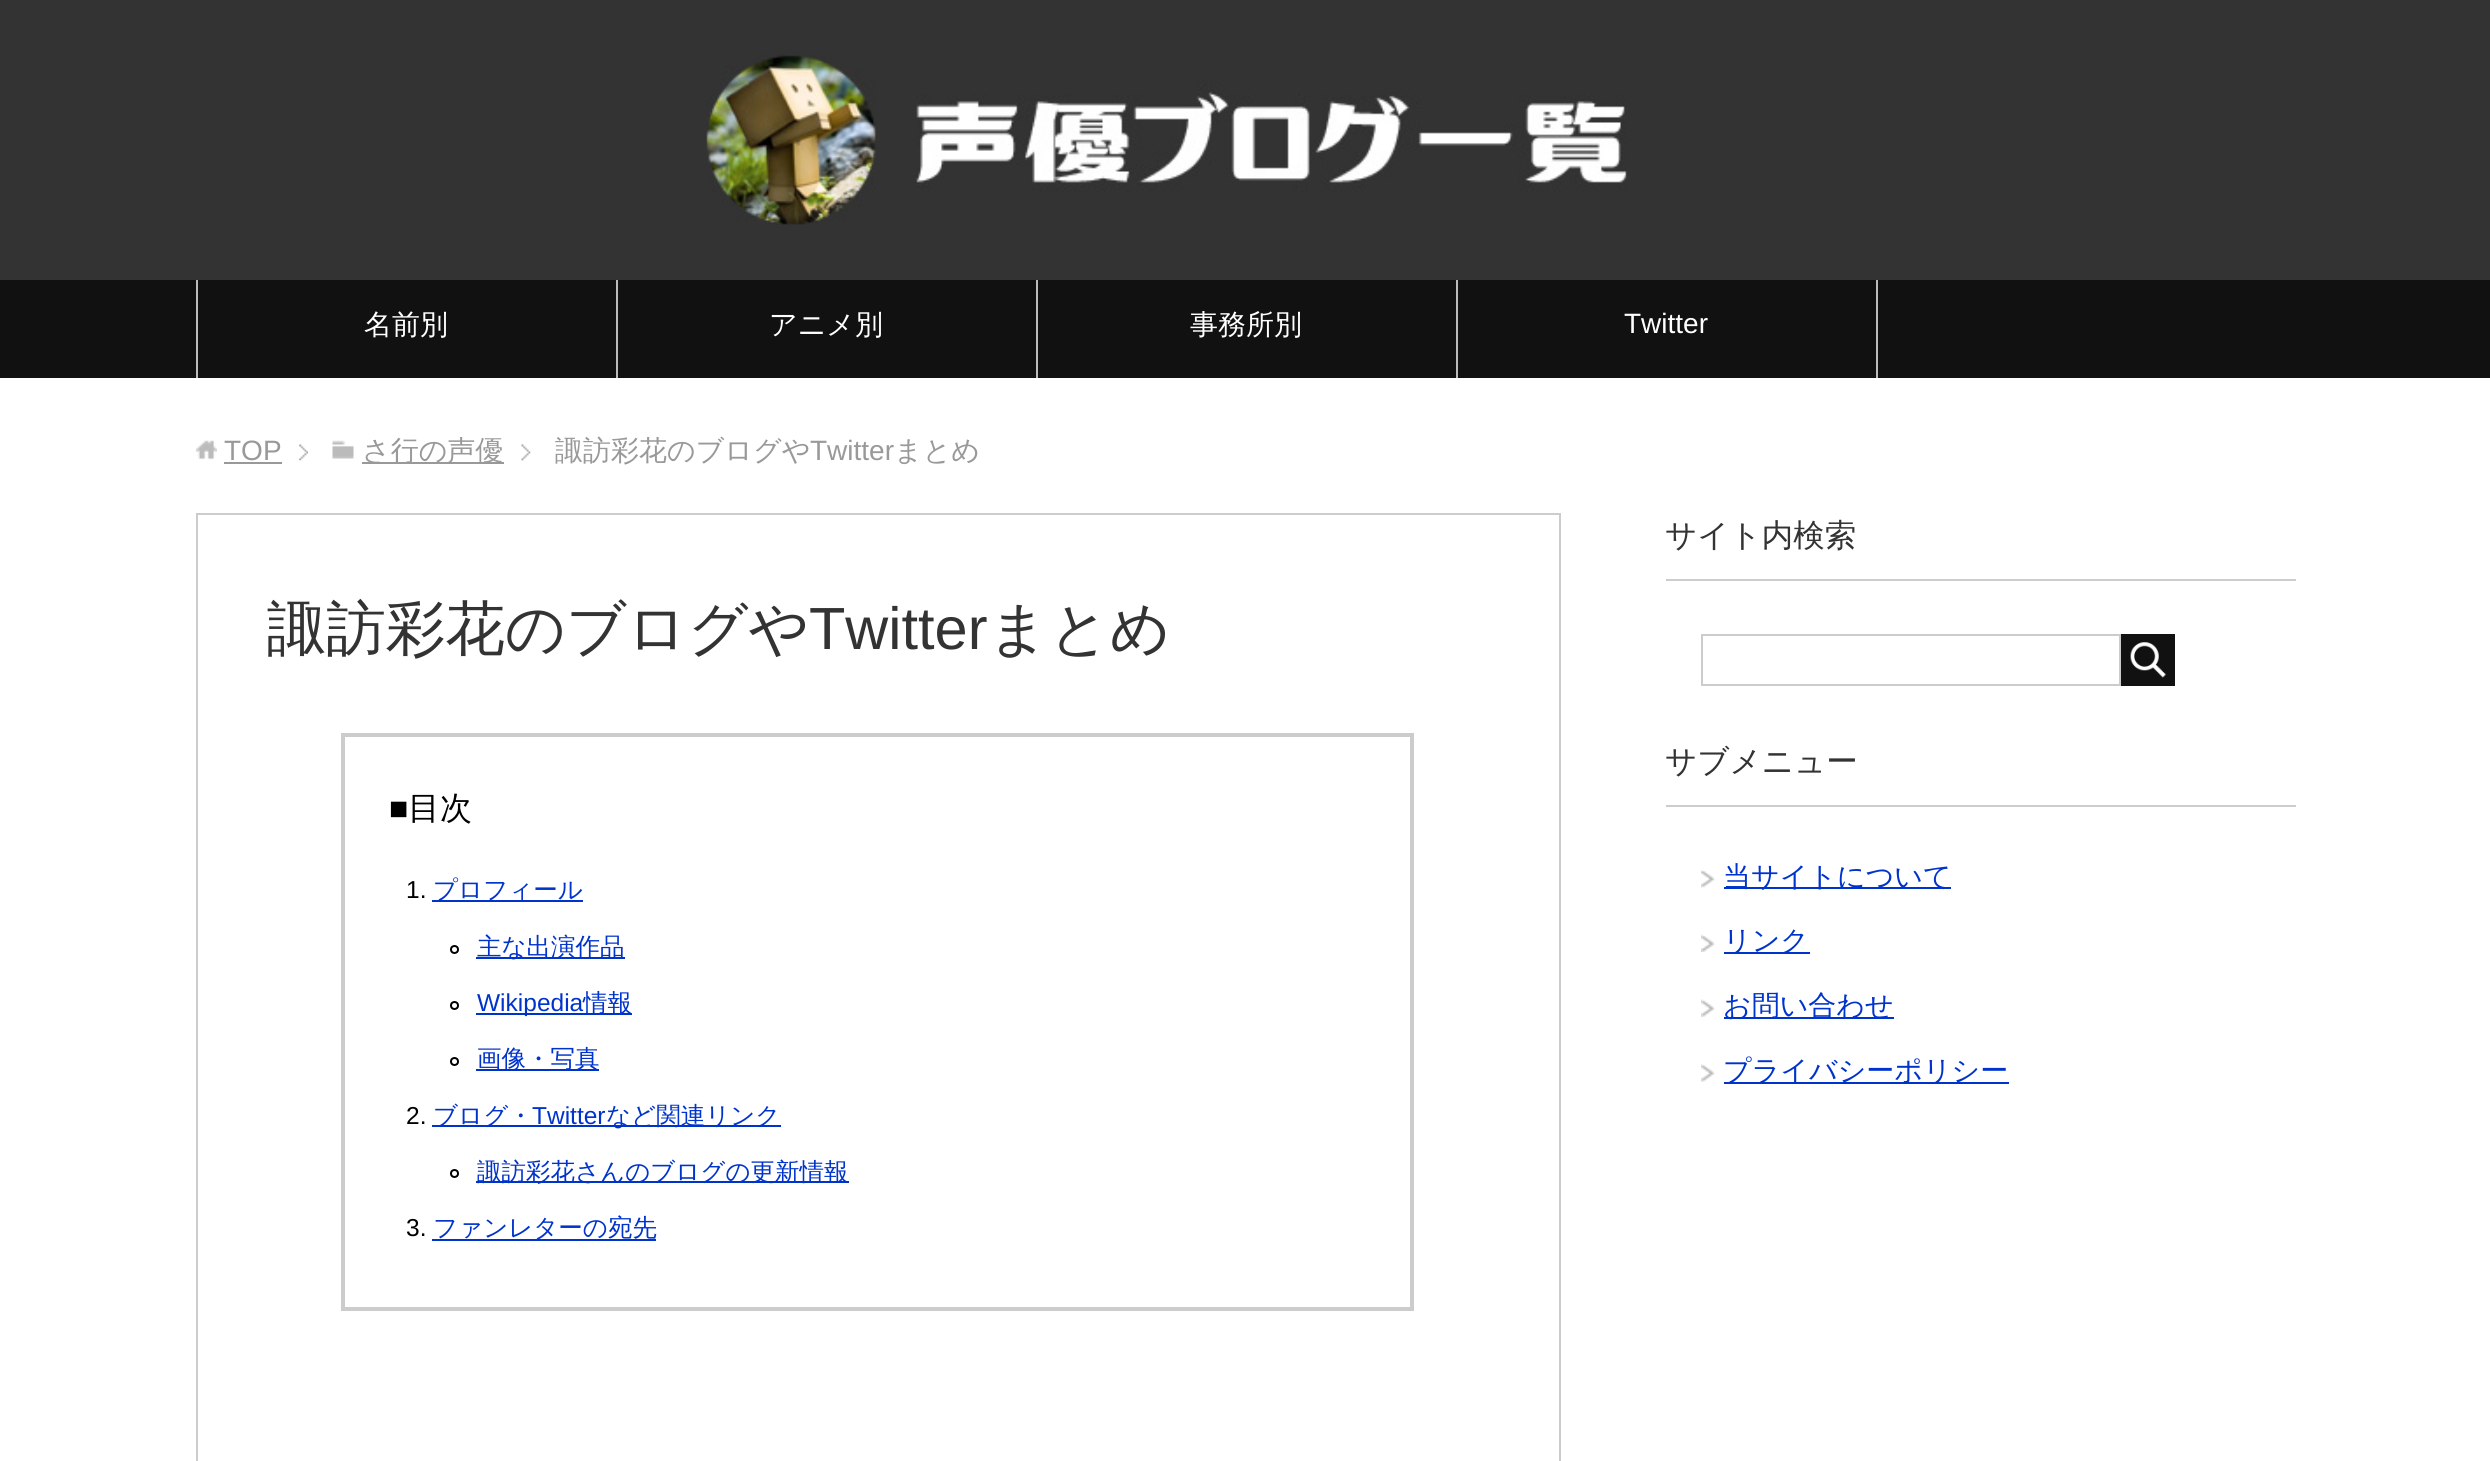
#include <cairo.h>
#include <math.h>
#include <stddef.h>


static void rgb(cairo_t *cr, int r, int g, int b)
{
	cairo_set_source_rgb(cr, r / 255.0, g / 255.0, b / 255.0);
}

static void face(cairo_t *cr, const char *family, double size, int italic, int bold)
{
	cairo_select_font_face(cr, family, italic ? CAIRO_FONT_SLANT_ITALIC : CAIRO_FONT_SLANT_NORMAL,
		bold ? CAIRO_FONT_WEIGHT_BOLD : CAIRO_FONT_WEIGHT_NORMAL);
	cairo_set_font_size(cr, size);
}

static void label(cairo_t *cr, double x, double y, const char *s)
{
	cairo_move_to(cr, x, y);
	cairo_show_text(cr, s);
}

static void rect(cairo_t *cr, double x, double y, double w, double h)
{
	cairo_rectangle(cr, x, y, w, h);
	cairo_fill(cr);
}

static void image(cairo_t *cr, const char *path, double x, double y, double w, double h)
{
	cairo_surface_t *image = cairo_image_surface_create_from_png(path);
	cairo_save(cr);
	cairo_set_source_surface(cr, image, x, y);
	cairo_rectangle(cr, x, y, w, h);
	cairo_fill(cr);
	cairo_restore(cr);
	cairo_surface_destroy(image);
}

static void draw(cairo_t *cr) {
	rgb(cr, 255, 255, 255);
	cairo_paint(cr);
	rgb(cr, 51, 51, 51);
	rect(cr, 0, 0, 2490, 280);
	image(cr, "image0.png", 706, 53, 921, 172);
	rgb(cr, 17, 17, 17);
	rect(cr, 0, 280, 2490, 98);
	rgb(cr, 188, 188, 188);
	rect(cr, 196, 280, 2, 98);
	rect(cr, 616, 280, 2, 98);
	face(cr, "WenQuanYi Zen Hei Medium", 28, 0, 0);
	rgb(cr, 255, 255, 255);
	label(cr, 364, 334, "名前別");
	rgb(cr, 188, 188, 188);
	rect(cr, 1036, 280, 2, 98);
	rgb(cr, 255, 255, 255);
	label(cr, 769, 334, "アニメ別");
	rgb(cr, 188, 188, 188);
	rect(cr, 1456, 280, 2, 98);
	rgb(cr, 255, 255, 255);
	label(cr, 1190, 334, "事務所別");
	rgb(cr, 188, 188, 188);
	rect(cr, 1876, 280, 2, 98);
	face(cr, "Liberation Sans", 28, 0, 0);
	rgb(cr, 255, 255, 255);
	label(cr, 1624, 333, "Twitter");
	image(cr, "image1.png", 299, 444, 9, 17);
	image(cr, "image2.png", 196, 440, 21, 20);
	rgb(cr, 153, 153, 153);
	label(cr, 224, 460, "TOP");
	rect(cr, 224, 462, 58, 2);
	image(cr, "image3.png", 521, 444, 10, 17);
	image(cr, "image4.png", 332, 440, 22, 19);
	rect(cr, 362, 462, 142, 2);
	face(cr, "WenQuanYi Zen Hei Medium", 28, 0, 0);
	label(cr, 362, 460, "さ行の声優");
	label(cr, 555, 460, "諏訪彩花のブログや");
	face(cr, "Liberation Sans", 28, 0, 0);
	label(cr, 810, 460, "Twitter");
	face(cr, "WenQuanYi Zen Hei Medium", 28, 0, 0);
	label(cr, 894, 460, "まとめ");
	cairo_rectangle(cr, 197, 514, 1363, 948);
	rgb(cr, 204, 204, 204);
	cairo_stroke(cr);
	face(cr, "WenQuanYi Zen Hei Medium", 59.5, 0, 0);
	rgb(cr, 51, 51, 51);
	label(cr, 267, 649, "諏訪彩花のブログや");
	face(cr, "Liberation Sans", 59.5, 0, 0);
	label(cr, 809, 649, "Twitter");
	face(cr, "WenQuanYi Zen Hei Medium", 59.5, 0, 0);
	label(cr, 988, 649, "まとめ");
	cairo_rectangle(cr, 343, 735, 1069, 574);
	rgb(cr, 204, 204, 204);
	cairo_set_line_width(cr, 4);
	cairo_stroke(cr);
	face(cr, "Liberation Sans", 32, 0, 0);
	rgb(cr, 0, 0, 0);
	label(cr, 389, 819, "■");
	face(cr, "WenQuanYi Zen Hei Medium", 32, 0, 0);
	label(cr, 408, 819, "目次");
	face(cr, "Liberation Sans", 24.5, 0, 0);
	label(cr, 406, 898, "1.");
	rgb(cr, 0, 51, 204);
	rect(cr, 432, 900, 151, 2);
	face(cr, "WenQuanYi Zen Hei Medium", 24.5, 0, 0);
	label(cr, 433, 898, "プロフィール");
	cairo_new_path(cr);
	cairo_arc(cr, 454.5, 949.5, 3.5, 0, 2 * M_PI);
	rgb(cr, 0, 0, 0);
	cairo_set_line_width(cr, 2);
	cairo_stroke(cr);
	rgb(cr, 0, 51, 204);
	rect(cr, 476, 957, 149, 2);
	label(cr, 477, 955, "主な出演作品");
	cairo_new_path(cr);
	cairo_arc(cr, 454.5, 1005.5, 3.5, 0, 2 * M_PI);
	rgb(cr, 0, 0, 0);
	cairo_stroke(cr);
	rgb(cr, 0, 51, 204);
	rect(cr, 476, 1013, 156, 2);
	face(cr, "Liberation Sans", 24.5, 0, 0);
	label(cr, 477, 1011, "Wikipedia");
	face(cr, "WenQuanYi Zen Hei Medium", 24.5, 0, 0);
	label(cr, 583, 1011, "情報");
	cairo_new_path(cr);
	cairo_arc(cr, 454.5, 1061.5, 3.5, 0, 2 * M_PI);
	rgb(cr, 0, 0, 0);
	cairo_stroke(cr);
	rgb(cr, 0, 51, 204);
	rect(cr, 476, 1069, 123, 2);
	label(cr, 477, 1067, "画像・写真");
	face(cr, "Liberation Sans", 24.5, 0, 0);
	rgb(cr, 0, 0, 0);
	label(cr, 406, 1124, "2.");
	rgb(cr, 0, 51, 204);
	rect(cr, 432, 1125, 349, 2);
	face(cr, "WenQuanYi Zen Hei Medium", 24.5, 0, 0);
	label(cr, 433, 1124, "ブログ・");
	face(cr, "Liberation Sans", 24.5, 0, 0);
	label(cr, 532, 1124, "Twitter");
	face(cr, "WenQuanYi Zen Hei Medium", 24.5, 0, 0);
	label(cr, 606, 1124, "など関連リンク");
	cairo_new_path(cr);
	cairo_arc(cr, 454.5, 1173.5, 3.5, 0, 2 * M_PI);
	rgb(cr, 0, 0, 0);
	cairo_stroke(cr);
	rgb(cr, 0, 51, 204);
	rect(cr, 476, 1181, 373, 2);
	label(cr, 477, 1180, "諏訪彩花さんのブログの更新情報");
	face(cr, "Liberation Sans", 24.5, 0, 0);
	rgb(cr, 0, 0, 0);
	label(cr, 406, 1236, "3.");
	rgb(cr, 0, 51, 204);
	rect(cr, 432, 1239, 224, 2);
	face(cr, "WenQuanYi Zen Hei Medium", 24.5, 0, 0);
	label(cr, 433, 1236, "ファンレターの宛先");
	rgb(cr, 204, 204, 204);
	rect(cr, 1666, 579, 630, 2);
	face(cr, "WenQuanYi Zen Hei Medium", 31.5, 0, 0);
	rgb(cr, 51, 51, 51);
	label(cr, 1665, 546, "サイト内検索");
	cairo_rectangle(cr, 1702, 635, 418, 50);
	rgb(cr, 204, 204, 204);
	cairo_stroke(cr);
	rgb(cr, 17, 17, 17);
	rect(cr, 2121, 634, 54, 52);
	image(cr, "image5.png", 2130, 642, 36, 36);
	rgb(cr, 204, 204, 204);
	rect(cr, 1666, 805, 630, 2);
	rgb(cr, 51, 51, 51);
	label(cr, 1665, 772, "サブメニュー");
	image(cr, "image6.png", 1701, 869, 14, 19);
	rgb(cr, 0, 51, 204);
	rect(cr, 1724, 887, 227, 2);
	face(cr, "WenQuanYi Zen Hei Medium", 28, 0, 0);
	label(cr, 1723, 886, "当サイトについて");
	image(cr, "image7.png", 1701, 934, 14, 18);
	rect(cr, 1724, 952, 86, 2);
	label(cr, 1723, 950, "リンク");
	image(cr, "image8.png", 1701, 999, 14, 18);
	rect(cr, 1724, 1017, 170, 2);
	label(cr, 1723, 1015, "お問い合わせ");
	image(cr, "image9.png", 1701, 1064, 14, 18);
	rect(cr, 1724, 1082, 285, 2);
	label(cr, 1723, 1080, "プライバシーポリシー");
}

int main(void) {
	cairo_surface_t *surface = cairo_image_surface_create(CAIRO_FORMAT_RGB24, 2490, 1461);
	cairo_t *cr = cairo_create(surface);
	cairo_font_options_t *options = cairo_font_options_create();
	cairo_font_options_set_hint_metrics(options, CAIRO_HINT_METRICS_OFF);
	cairo_font_options_set_hint_style(options, CAIRO_HINT_STYLE_NONE);
	cairo_set_font_options(cr, options);
	cairo_set_miter_limit(cr, 4);
	draw(cr);
	cairo_surface_write_to_png(surface, "render.png");
	cairo_font_options_destroy(options);
	cairo_destroy(cr);
	cairo_surface_destroy(surface);
	return 0;
}
